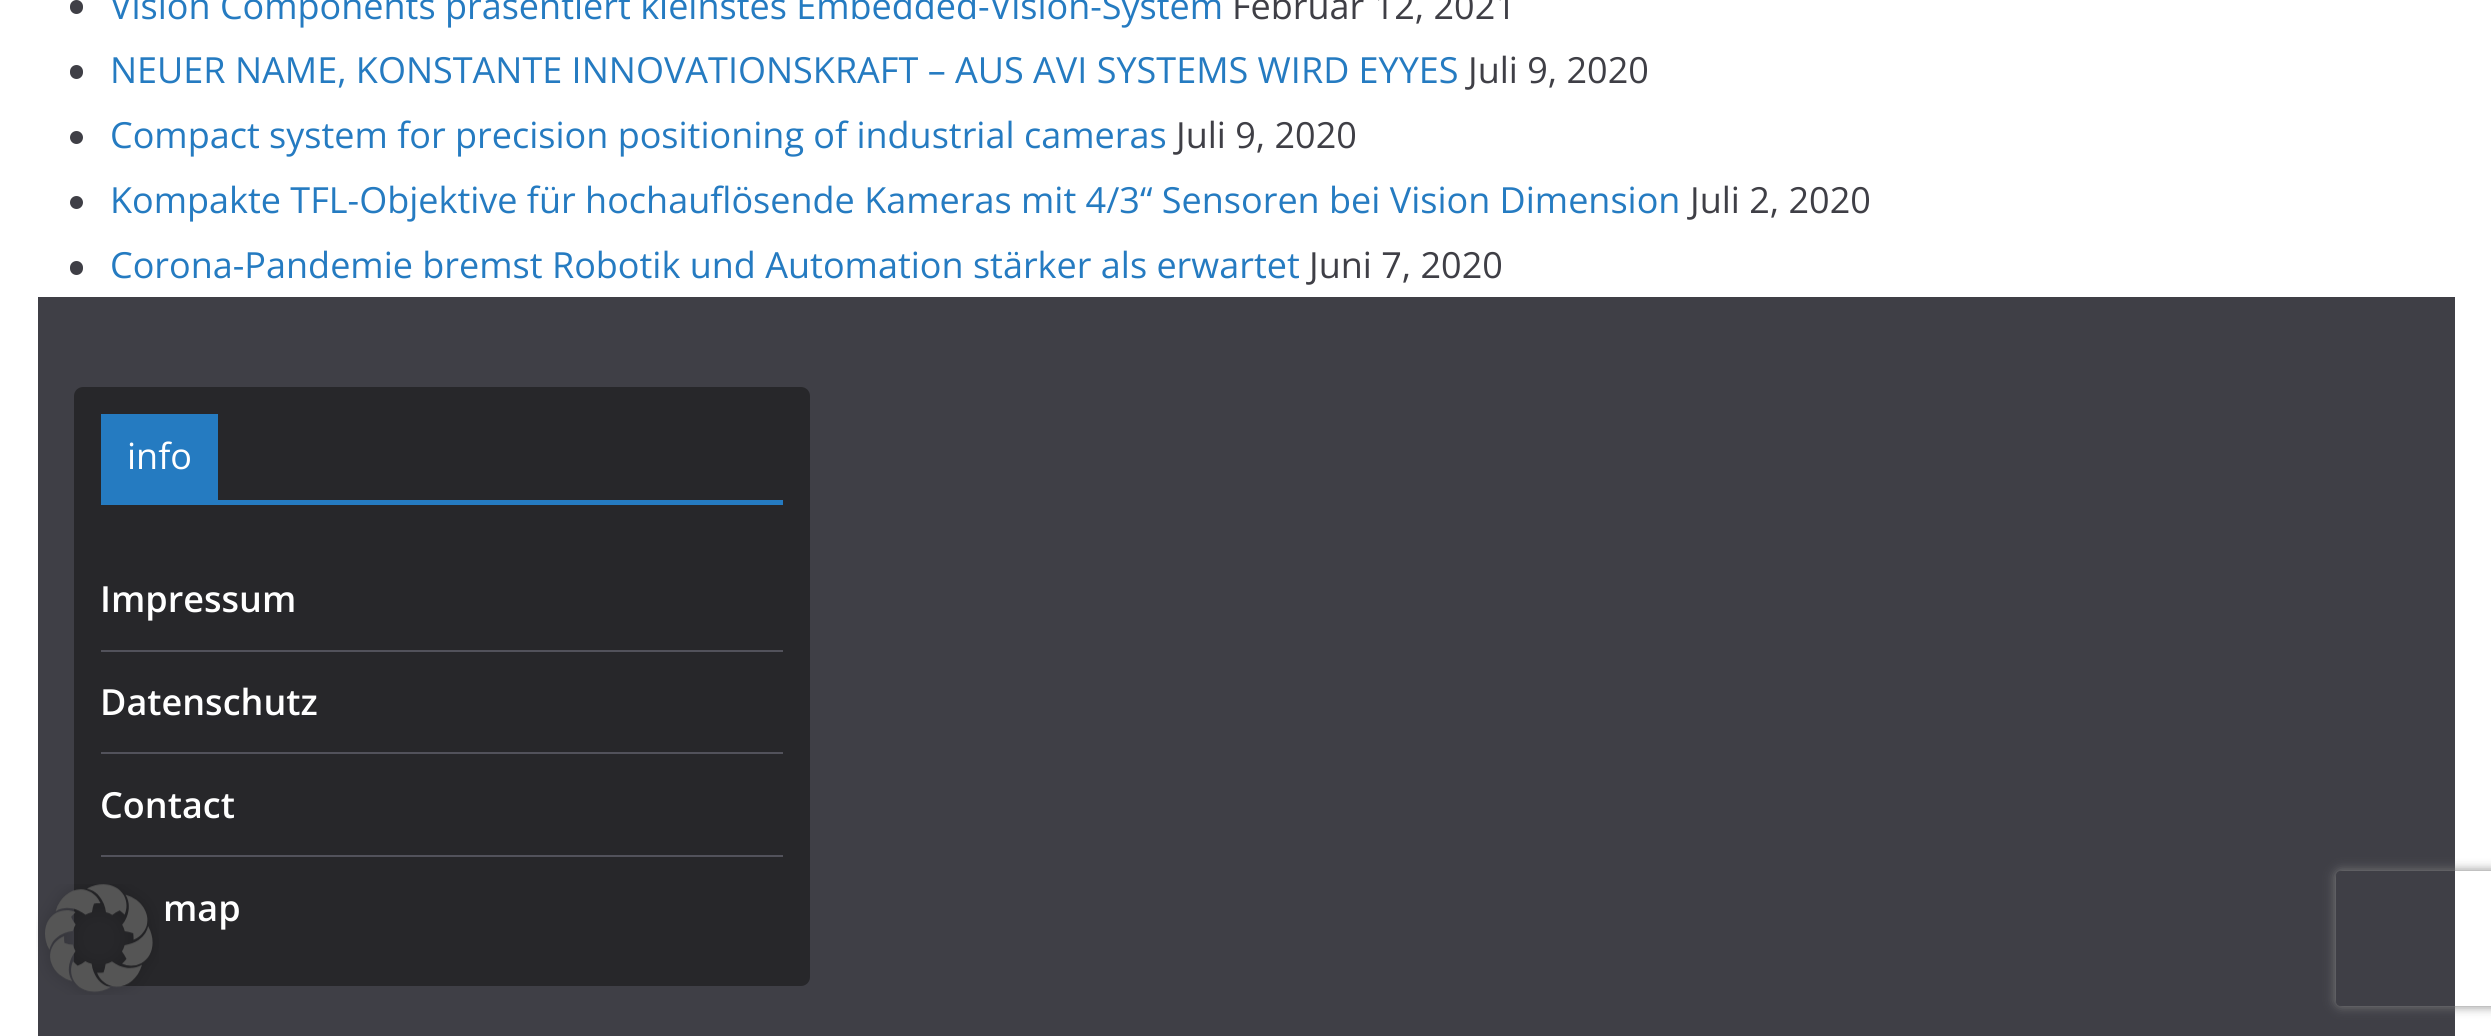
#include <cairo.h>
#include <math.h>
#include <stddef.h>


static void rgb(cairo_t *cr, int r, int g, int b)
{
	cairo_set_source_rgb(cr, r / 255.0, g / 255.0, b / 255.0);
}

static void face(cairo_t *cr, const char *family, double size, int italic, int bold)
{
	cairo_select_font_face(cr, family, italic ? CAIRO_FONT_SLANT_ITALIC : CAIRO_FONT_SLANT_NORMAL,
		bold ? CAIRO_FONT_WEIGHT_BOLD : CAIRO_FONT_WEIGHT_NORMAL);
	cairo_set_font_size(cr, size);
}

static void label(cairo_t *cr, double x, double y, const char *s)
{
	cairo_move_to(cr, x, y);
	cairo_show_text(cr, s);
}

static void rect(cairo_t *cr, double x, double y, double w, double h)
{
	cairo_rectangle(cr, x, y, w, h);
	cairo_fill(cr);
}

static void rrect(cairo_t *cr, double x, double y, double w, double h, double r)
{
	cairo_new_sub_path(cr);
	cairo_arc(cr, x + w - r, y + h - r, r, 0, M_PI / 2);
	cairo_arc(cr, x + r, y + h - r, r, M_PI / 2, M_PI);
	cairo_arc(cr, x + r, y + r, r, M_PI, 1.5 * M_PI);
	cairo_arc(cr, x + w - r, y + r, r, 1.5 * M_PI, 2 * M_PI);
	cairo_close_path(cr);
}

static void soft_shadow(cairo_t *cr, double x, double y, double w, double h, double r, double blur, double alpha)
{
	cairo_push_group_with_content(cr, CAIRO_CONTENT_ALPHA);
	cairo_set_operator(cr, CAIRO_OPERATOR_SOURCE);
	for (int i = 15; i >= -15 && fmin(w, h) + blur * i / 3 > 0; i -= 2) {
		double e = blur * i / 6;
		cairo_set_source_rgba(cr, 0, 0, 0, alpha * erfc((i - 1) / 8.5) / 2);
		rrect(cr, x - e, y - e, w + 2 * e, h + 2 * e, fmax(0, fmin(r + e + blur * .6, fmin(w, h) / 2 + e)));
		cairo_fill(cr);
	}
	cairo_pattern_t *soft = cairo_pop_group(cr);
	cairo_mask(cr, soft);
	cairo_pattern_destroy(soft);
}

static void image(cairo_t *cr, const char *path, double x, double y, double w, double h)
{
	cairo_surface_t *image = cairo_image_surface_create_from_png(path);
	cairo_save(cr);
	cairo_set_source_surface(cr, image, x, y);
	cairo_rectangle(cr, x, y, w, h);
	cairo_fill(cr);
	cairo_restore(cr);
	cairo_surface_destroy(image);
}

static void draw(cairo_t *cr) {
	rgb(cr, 255, 255, 255);
	cairo_paint(cr);
	rgb(cr, 63, 63, 70);
	rect(cr, 38, 297, 2417, 739);
	rgb(cr, 39, 39, 42);
	rrect(cr, 74, 387, 736, 599, 9);
	cairo_fill(cr);
	image(cr, "image0.png", 36, 884, 123, 111);
	rgb(cr, 63, 63, 70);
	rrect(cr, 70, 0, 13, 14, 6.5);
	cairo_fill(cr);
	face(cr, "Open Sans", 36, 0, 0);
	rgb(cr, 37, 123, 193);
	label(cr, 110, 19, "Vision Components präsentiert kleinstes Embedded-Vision-System");
	rgb(cr, 63, 63, 70);
	label(cr, 1232, 19, "Februar 12, 2021");
	rrect(cr, 70, 65, 13, 14, 6.5);
	cairo_fill(cr);
	rgb(cr, 37, 123, 193);
	label(cr, 110, 83, "NEUER NAME, KONSTANTE INNOVATIONSKRAFT – AUS AVI SYSTEMS WIRD EYYES");
	rgb(cr, 63, 63, 70);
	label(cr, 1468, 83, "Juli 9, 2020");
	cairo_new_path(cr);
	cairo_arc(cr, 76.5, 137.5, 6.5, 0, 2 * M_PI);
	cairo_fill(cr);
	rgb(cr, 37, 123, 193);
	label(cr, 110, 148, "Compact system for precision positioning of industrial cameras");
	rgb(cr, 63, 63, 70);
	label(cr, 1176, 148, "Juli 9, 2020");
	cairo_new_path(cr);
	cairo_arc(cr, 76.5, 202.5, 6.5, 0, 2 * M_PI);
	cairo_fill(cr);
	rgb(cr, 37, 123, 193);
	label(cr, 110, 213, "Kompakte TFL-Objektive für hochauflösende Kameras mit 4/3“ Sensoren bei Vision Dimension");
	rgb(cr, 63, 63, 70);
	label(cr, 1690, 213, "Juli 2, 2020");
	rrect(cr, 70, 261, 13, 14, 6.5);
	cairo_fill(cr);
	rgb(cr, 37, 123, 193);
	label(cr, 110, 278, "Corona-Pandemie bremst Robotik und Automation stärker als erwartet");
	rgb(cr, 63, 63, 70);
	label(cr, 1309, 278, "Juni 7, 2020");
	rgb(cr, 37, 123, 193);
	rect(cr, 101, 500, 682, 5);
	rect(cr, 101, 414, 117, 86);
	rgb(cr, 255, 255, 255);
	label(cr, 127, 469, "info");
	rgb(cr, 82, 82, 91);
	rect(cr, 101, 650, 682, 2);
	face(cr, "Open Sans SemiBold", 36, 0, 0);
	rgb(cr, 255, 255, 255);
	label(cr, 100, 612, "Impressum");
	rgb(cr, 82, 82, 91);
	rect(cr, 101, 752, 682, 2);
	rgb(cr, 255, 255, 255);
	label(cr, 100, 715, "Datenschutz");
	rgb(cr, 82, 82, 91);
	rect(cr, 101, 855, 682, 2);
	rgb(cr, 255, 255, 255);
	label(cr, 100, 818, "Contact");
	label(cr, 163, 921, "map");
	cairo_save(cr);
	cairo_set_fill_rule(cr, CAIRO_FILL_RULE_EVEN_ODD);
	cairo_new_path(cr);
	cairo_move_to(cr, 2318, 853);
	cairo_line_to(cr, 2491, 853);
	cairo_line_to(cr, 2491, 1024);
	cairo_line_to(cr, 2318, 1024);
	cairo_close_path(cr);
	cairo_move_to(cr, 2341, 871);
	cairo_line_to(cr, 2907, 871);
	cairo_curve_to(cr, 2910, 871, 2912, 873, 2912, 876);
	cairo_line_to(cr, 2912, 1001);
	cairo_curve_to(cr, 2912, 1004, 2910, 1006, 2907, 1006);
	cairo_line_to(cr, 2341, 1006);
	cairo_curve_to(cr, 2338, 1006, 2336, 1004, 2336, 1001);
	cairo_line_to(cr, 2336, 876);
	cairo_curve_to(cr, 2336, 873, 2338, 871, 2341, 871);
	cairo_close_path(cr);
	cairo_clip(cr);
	rgb(cr, 128, 128, 128);
	soft_shadow(cr, 2336, 871, 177, 135, 5, 5.5, 1);
	cairo_restore(cr);
}

int main(void) {
	cairo_surface_t *surface = cairo_image_surface_create(CAIRO_FORMAT_RGB24, 2491, 1036);
	cairo_t *cr = cairo_create(surface);
	cairo_font_options_t *options = cairo_font_options_create();
	cairo_font_options_set_hint_metrics(options, CAIRO_HINT_METRICS_OFF);
	cairo_font_options_set_hint_style(options, CAIRO_HINT_STYLE_NONE);
	cairo_set_font_options(cr, options);
	cairo_set_miter_limit(cr, 4);
	draw(cr);
	cairo_surface_write_to_png(surface, "render.png");
	cairo_font_options_destroy(options);
	cairo_destroy(cr);
	cairo_surface_destroy(surface);
	return 0;
}
